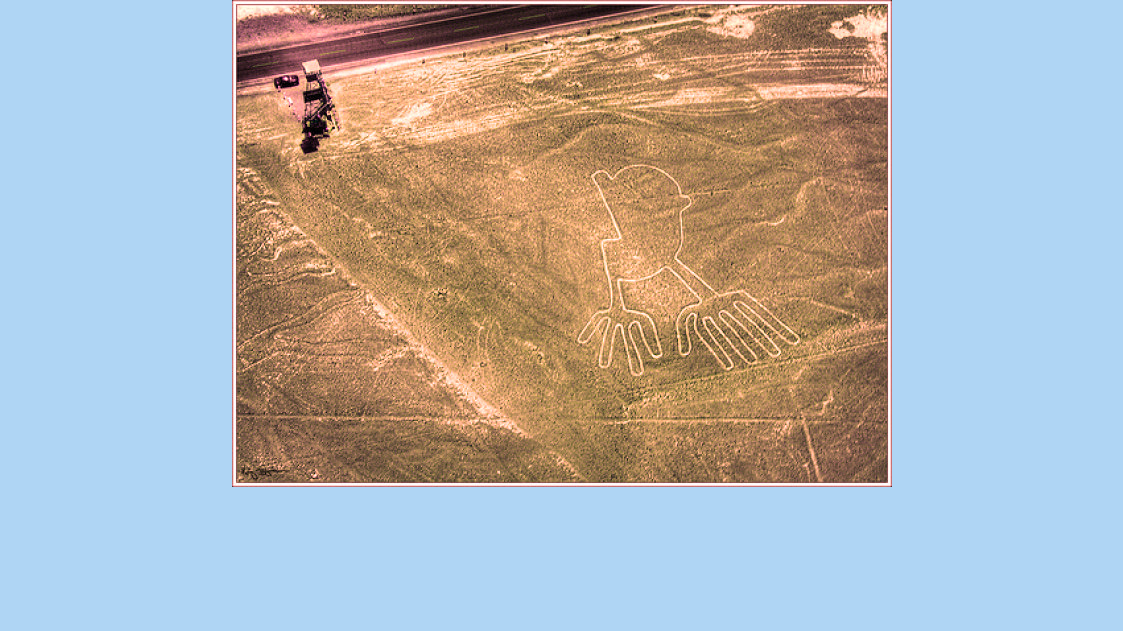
#include <cairo.h>
#include <math.h>
#include <stddef.h>


static void rgb(cairo_t *cr, int r, int g, int b)
{
	cairo_set_source_rgb(cr, r / 255.0, g / 255.0, b / 255.0);
}

static void image(cairo_t *cr, const char *path, double x, double y, double w, double h)
{
	cairo_surface_t *image = cairo_image_surface_create_from_png(path);
	cairo_save(cr);
	cairo_set_source_surface(cr, image, x, y);
	cairo_rectangle(cr, x, y, w, h);
	cairo_fill(cr);
	cairo_restore(cr);
	cairo_surface_destroy(image);
}

static void draw(cairo_t *cr) {
	rgb(cr, 175, 213, 244);
	cairo_paint(cr);
	image(cr, "image0.png", 232, 0, 660, 487);
}

int main(void) {
	cairo_surface_t *surface = cairo_image_surface_create(CAIRO_FORMAT_RGB24, 1123, 631);
	cairo_t *cr = cairo_create(surface);
	cairo_font_options_t *options = cairo_font_options_create();
	cairo_font_options_set_hint_metrics(options, CAIRO_HINT_METRICS_OFF);
	cairo_font_options_set_hint_style(options, CAIRO_HINT_STYLE_NONE);
	cairo_set_font_options(cr, options);
	cairo_set_miter_limit(cr, 4);
	draw(cr);
	cairo_surface_write_to_png(surface, "render.png");
	cairo_font_options_destroy(options);
	cairo_destroy(cr);
	cairo_surface_destroy(surface);
	return 0;
}
